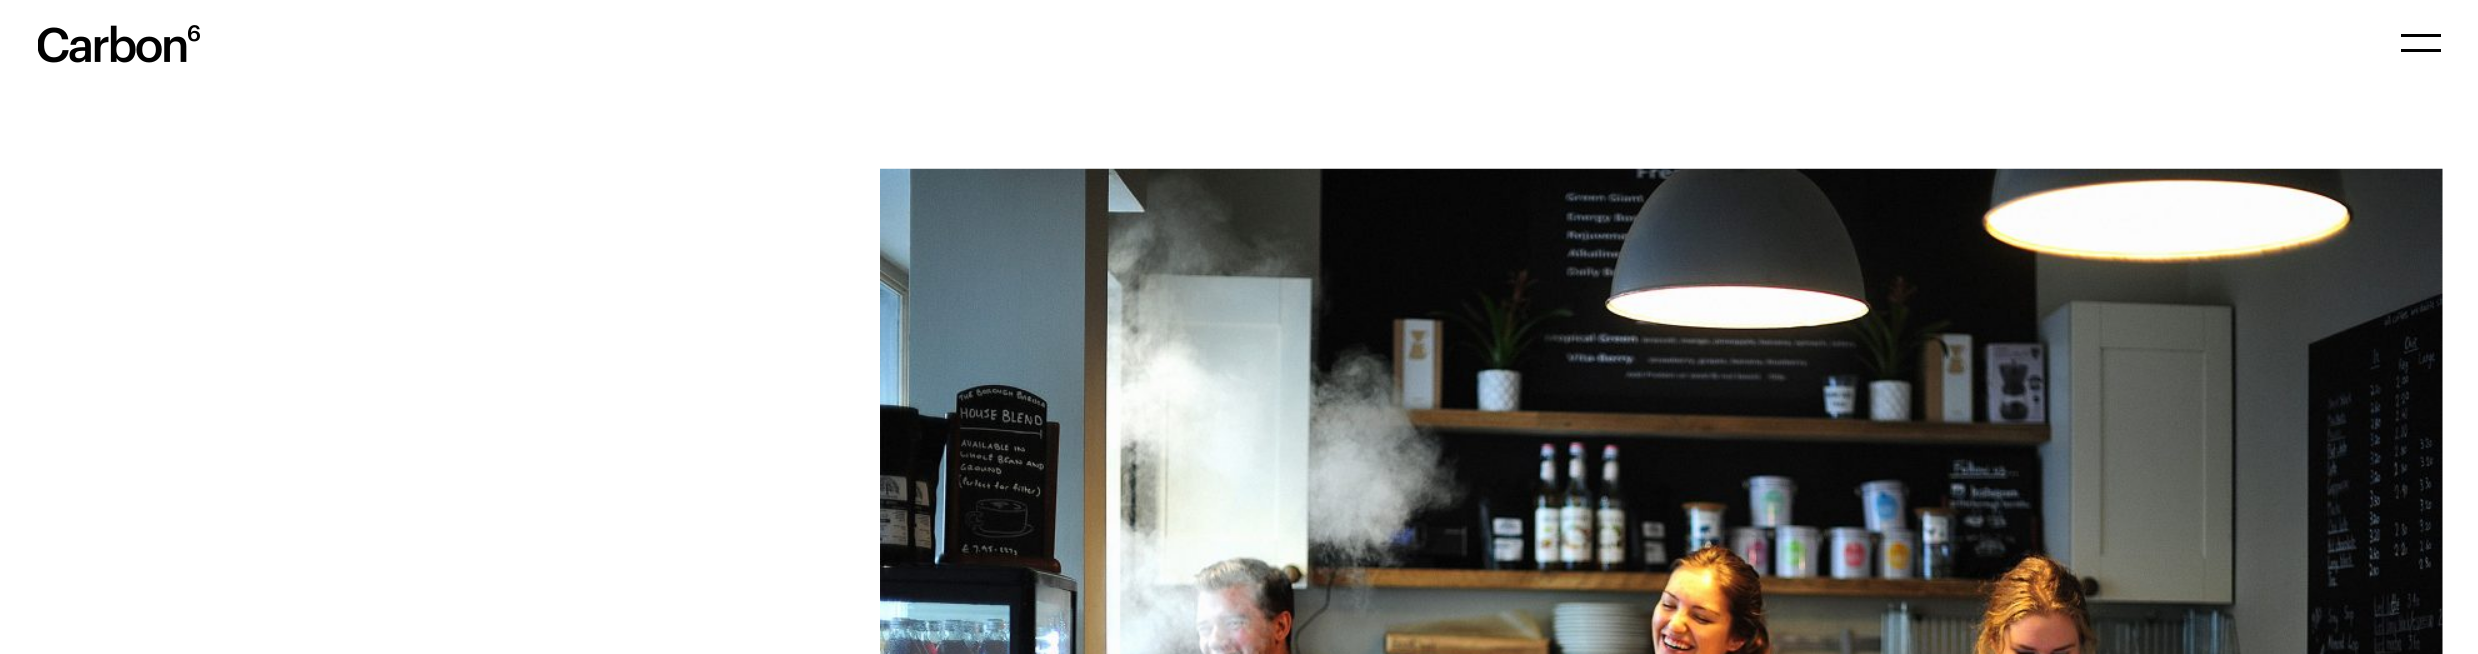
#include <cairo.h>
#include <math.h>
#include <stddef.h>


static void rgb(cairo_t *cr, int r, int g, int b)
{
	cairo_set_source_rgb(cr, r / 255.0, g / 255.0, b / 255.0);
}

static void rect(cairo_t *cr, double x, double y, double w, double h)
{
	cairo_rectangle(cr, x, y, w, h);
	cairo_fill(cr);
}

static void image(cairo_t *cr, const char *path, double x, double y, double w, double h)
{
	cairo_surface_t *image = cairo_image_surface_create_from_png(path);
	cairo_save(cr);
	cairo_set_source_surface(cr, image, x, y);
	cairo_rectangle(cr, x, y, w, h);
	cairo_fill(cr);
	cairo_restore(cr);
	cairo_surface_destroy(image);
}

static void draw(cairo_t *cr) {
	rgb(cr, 255, 255, 255);
	cairo_paint(cr);
	image(cr, "image0.png", 38, 25, 162, 38);
	rgb(cr, 1, 1, 1);
	rect(cr, 2401, 34, 40, 3);
	rect(cr, 2401, 49, 40, 3);
	image(cr, "image1.png", 880, 168, 1563, 486);
}

int main(void) {
	cairo_surface_t *surface = cairo_image_surface_create(CAIRO_FORMAT_RGB24, 2478, 654);
	cairo_t *cr = cairo_create(surface);
	cairo_font_options_t *options = cairo_font_options_create();
	cairo_font_options_set_hint_metrics(options, CAIRO_HINT_METRICS_OFF);
	cairo_font_options_set_hint_style(options, CAIRO_HINT_STYLE_NONE);
	cairo_set_font_options(cr, options);
	cairo_set_miter_limit(cr, 4);
	draw(cr);
	cairo_surface_write_to_png(surface, "render.png");
	cairo_font_options_destroy(options);
	cairo_destroy(cr);
	cairo_surface_destroy(surface);
	return 0;
}
